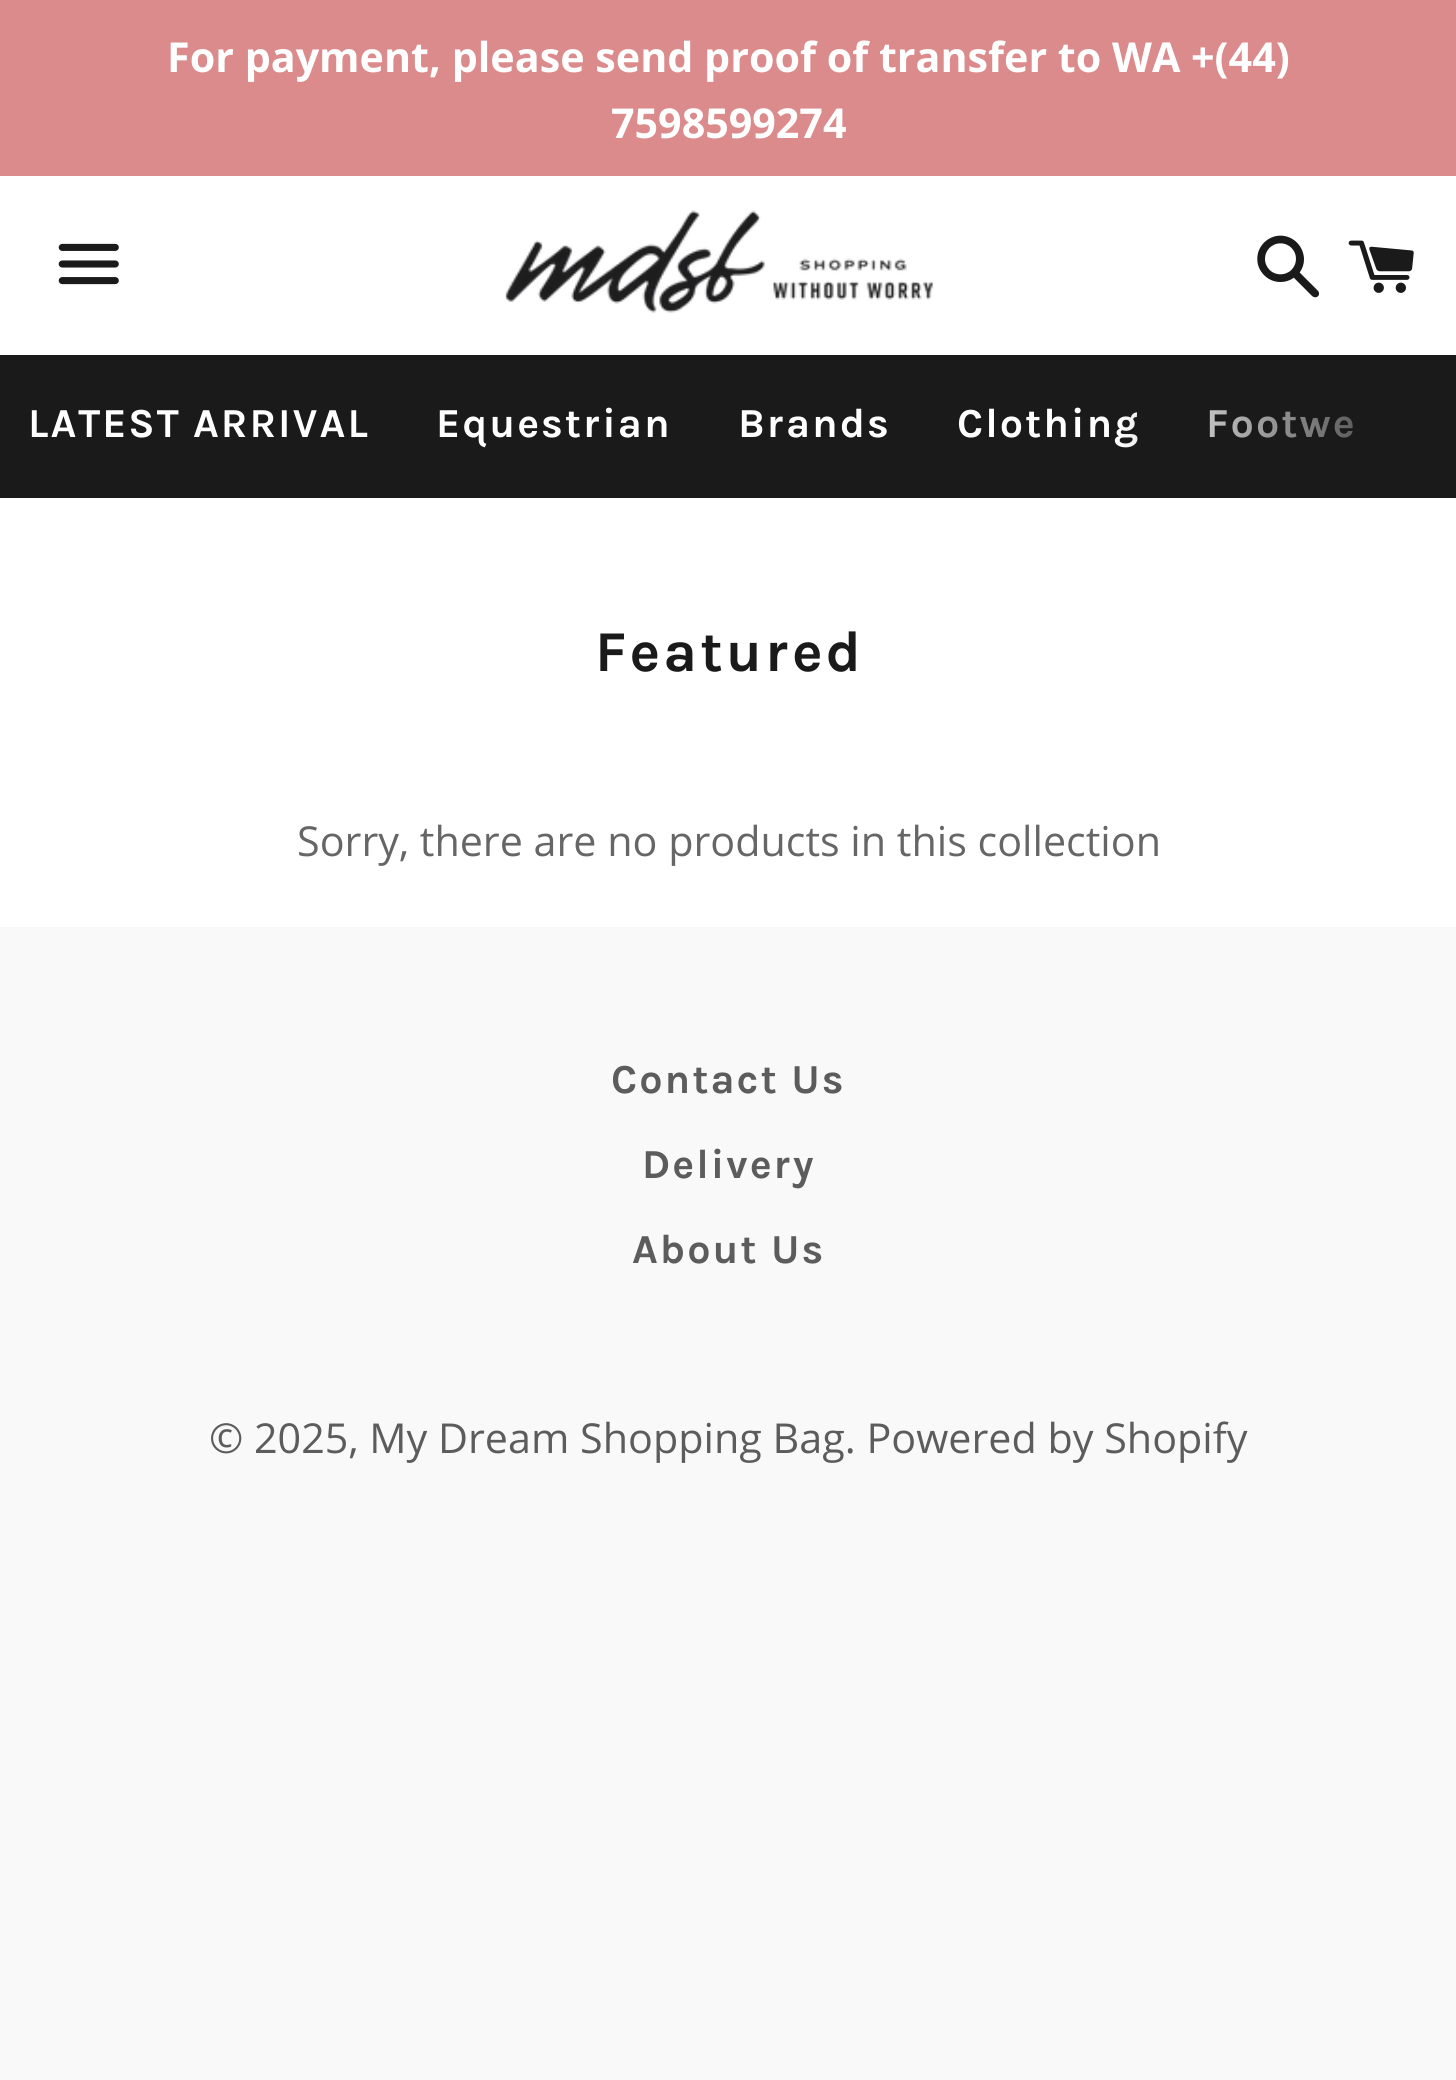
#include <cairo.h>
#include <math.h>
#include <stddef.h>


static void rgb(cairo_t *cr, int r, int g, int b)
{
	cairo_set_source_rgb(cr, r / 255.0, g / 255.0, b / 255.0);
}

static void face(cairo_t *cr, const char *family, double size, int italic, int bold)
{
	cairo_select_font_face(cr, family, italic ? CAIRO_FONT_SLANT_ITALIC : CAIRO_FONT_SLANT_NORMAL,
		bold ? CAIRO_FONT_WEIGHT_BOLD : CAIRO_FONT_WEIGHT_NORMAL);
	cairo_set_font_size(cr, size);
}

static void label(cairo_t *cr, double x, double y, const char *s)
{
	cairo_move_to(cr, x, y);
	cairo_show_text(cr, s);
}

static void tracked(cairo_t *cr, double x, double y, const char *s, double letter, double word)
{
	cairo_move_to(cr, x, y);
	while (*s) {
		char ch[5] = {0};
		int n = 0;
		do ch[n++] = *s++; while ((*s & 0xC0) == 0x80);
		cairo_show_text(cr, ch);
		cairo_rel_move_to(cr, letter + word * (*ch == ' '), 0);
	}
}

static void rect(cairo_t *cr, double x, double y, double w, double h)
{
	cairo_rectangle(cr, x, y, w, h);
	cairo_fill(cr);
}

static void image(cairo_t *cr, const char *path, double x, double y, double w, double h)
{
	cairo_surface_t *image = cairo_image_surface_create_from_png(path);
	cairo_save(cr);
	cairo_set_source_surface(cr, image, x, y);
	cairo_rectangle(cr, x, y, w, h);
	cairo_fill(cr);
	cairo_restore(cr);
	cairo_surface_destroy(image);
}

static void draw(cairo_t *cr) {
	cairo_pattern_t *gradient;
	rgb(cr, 249, 249, 249);
	cairo_paint(cr);
	rgb(cr, 255, 255, 255);
	rect(cr, 0, 176, 1456, 751);
	rgb(cr, 219, 139, 139);
	rect(cr, 0, 0, 1456, 176);
	face(cr, "Open Sans", 41.25, 0, 1);
	rgb(cr, 255, 255, 255);
	label(cr, 167, 72, "For payment, please send proof of transfer to WA +(44)");
	label(cr, 611, 138, "7598599274");
	image(cr, "image0.png", 58, 243, 61, 42);
	image(cr, "image1.png", 505, 210, 429, 103);
	image(cr, "image2.png", 1257, 235, 63, 63);
	image(cr, "image3.png", 1348, 240, 66, 53);
	rgb(cr, 26, 26, 26);
	rect(cr, 0, 355, 1456, 143);
	face(cr, "Karla", 41.25, 0, 1);
	rgb(cr, 255, 255, 255);
	tracked(cr, 28, 437, "LATEST ARRIVAL", 2, 0);
	tracked(cr, 436, 437, "Equestrian", 2, 0);
	tracked(cr, 738, 437, "Brands", 2, 0);
	tracked(cr, 957, 437, "Clothing", 2, 0);
	tracked(cr, 1206, 437, "Footwe", 2, 0);
	gradient = cairo_pattern_create_linear(1114, 426, 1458, 426);
	cairo_pattern_add_color_stop_rgba(gradient, 0, 0.102, 0.102, 0.102, 0);
	cairo_pattern_add_color_stop_rgba(gradient, 1, 0.102, 0.102, 0.102, 1);
	cairo_set_source(cr, gradient);
	cairo_pattern_destroy(gradient);
	rect(cr, 1121, 410, 233, 38);
	face(cr, "Karla", 57.75, 0, 1);
	rgb(cr, 26, 26, 26);
	tracked(cr, 595, 671, "Featured", 3, 0);
	face(cr, "Open Sans", 41.25, 0, 0);
	rgb(cr, 102, 102, 102);
	label(cr, 297, 856, "Sorry, there are no products in this collection");
	face(cr, "Karla", 41.25, 0, 1);
	rgb(cr, 92, 92, 92);
	tracked(cr, 611, 1093, "Contact Us", 2, 0);
	tracked(cr, 642, 1178, "Delivery", 2, 0);
	tracked(cr, 632, 1263, "About Us", 2, 0);
	face(cr, "Open Sans", 41.25, 0, 0);
	label(cr, 209, 1453, "© 2025, My Dream Shopping Bag. Powered by Shopify");
}

int main(void) {
	cairo_surface_t *surface = cairo_image_surface_create(CAIRO_FORMAT_RGB24, 1456, 2080);
	cairo_t *cr = cairo_create(surface);
	cairo_font_options_t *options = cairo_font_options_create();
	cairo_font_options_set_hint_metrics(options, CAIRO_HINT_METRICS_OFF);
	cairo_font_options_set_hint_style(options, CAIRO_HINT_STYLE_NONE);
	cairo_set_font_options(cr, options);
	cairo_set_miter_limit(cr, 4);
	draw(cr);
	cairo_surface_write_to_png(surface, "render.png");
	cairo_font_options_destroy(options);
	cairo_destroy(cr);
	cairo_surface_destroy(surface);
	return 0;
}
